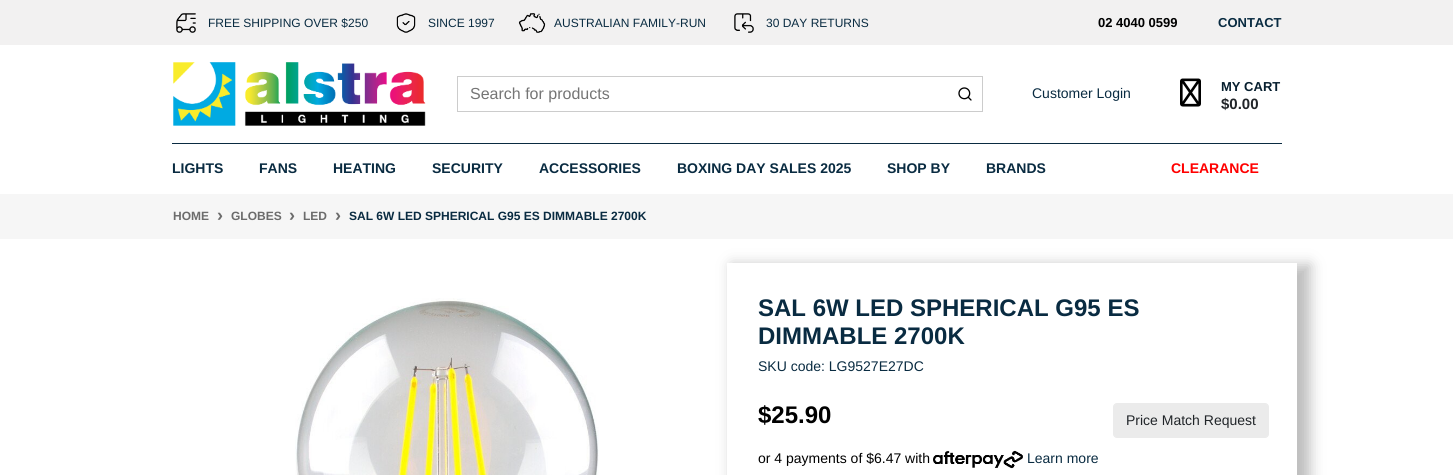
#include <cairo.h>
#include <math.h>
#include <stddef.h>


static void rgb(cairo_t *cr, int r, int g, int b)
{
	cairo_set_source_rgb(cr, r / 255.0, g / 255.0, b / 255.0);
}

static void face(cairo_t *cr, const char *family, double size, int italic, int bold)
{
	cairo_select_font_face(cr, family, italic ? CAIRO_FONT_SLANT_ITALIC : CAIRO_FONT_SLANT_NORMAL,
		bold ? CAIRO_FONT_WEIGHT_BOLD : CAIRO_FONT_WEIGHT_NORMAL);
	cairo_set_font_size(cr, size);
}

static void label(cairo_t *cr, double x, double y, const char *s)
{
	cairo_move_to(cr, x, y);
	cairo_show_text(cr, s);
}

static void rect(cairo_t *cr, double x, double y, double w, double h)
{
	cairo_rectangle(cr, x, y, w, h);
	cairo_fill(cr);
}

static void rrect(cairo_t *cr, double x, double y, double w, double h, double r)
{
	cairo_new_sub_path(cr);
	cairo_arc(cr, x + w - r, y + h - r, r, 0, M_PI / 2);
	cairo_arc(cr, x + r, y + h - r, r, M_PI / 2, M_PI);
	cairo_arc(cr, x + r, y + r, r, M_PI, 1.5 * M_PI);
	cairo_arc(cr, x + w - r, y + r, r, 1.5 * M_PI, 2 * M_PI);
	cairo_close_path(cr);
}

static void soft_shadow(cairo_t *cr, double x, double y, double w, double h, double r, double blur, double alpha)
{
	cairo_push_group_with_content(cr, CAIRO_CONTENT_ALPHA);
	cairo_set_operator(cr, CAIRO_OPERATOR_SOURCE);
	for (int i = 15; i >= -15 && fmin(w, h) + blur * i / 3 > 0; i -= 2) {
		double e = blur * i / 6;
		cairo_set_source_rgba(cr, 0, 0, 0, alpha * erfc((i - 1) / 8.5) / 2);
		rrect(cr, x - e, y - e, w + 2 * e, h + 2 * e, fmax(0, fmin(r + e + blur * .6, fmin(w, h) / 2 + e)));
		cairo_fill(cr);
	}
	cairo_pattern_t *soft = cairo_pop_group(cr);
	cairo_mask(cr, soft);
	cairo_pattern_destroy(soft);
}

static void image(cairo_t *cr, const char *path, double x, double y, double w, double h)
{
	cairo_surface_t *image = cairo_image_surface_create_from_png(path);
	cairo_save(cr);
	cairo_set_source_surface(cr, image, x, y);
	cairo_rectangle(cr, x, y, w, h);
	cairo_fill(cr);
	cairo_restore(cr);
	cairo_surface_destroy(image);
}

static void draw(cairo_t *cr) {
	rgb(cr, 255, 255, 255);
	cairo_paint(cr);
	rgb(cr, 242, 241, 241);
	rect(cr, 0, 0, 1453, 45);
	image(cr, "image0.png", 176, 13, 20, 20);
	face(cr, "Liberation Sans", 12, 0, 0);
	rgb(cr, 9, 43, 65);
	label(cr, 208, 27, "FREE SHIPPING OVER $250");
	image(cr, "image1.png", 396, 13, 20, 20);
	label(cr, 428, 27, "SINCE 1997");
	image(cr, "image2.png", 518, 13, 28, 20);
	label(cr, 554, 27, "AUSTRALIAN FAMILY-RUN");
	image(cr, "image3.png", 734, 13, 20, 20);
	label(cr, 766, 27, "30 DAY RETURNS");
	face(cr, "Liberation Sans", 13, 0, 1);
	rgb(cr, 0, 0, 0);
	label(cr, 1098, 27, "02 4040 0599");
	rgb(cr, 9, 43, 65);
	label(cr, 1218, 27, "CONTACT");
	image(cr, "image4.png", 173, 62, 253, 64);
	cairo_rectangle(cr, 457.5, 76.5, 525, 35);
	rgb(cr, 204, 204, 204);
	cairo_set_line_width(cr, 1);
	cairo_stroke(cr);
	face(cr, "Liberation Sans", 16, 0, 0);
	rgb(cr, 117, 117, 117);
	label(cr, 470, 99, "Search for products");
	image(cr, "image5.png", 958, 87, 14, 14);
	face(cr, "Liberation Sans", 14, 0, 0);
	rgb(cr, 9, 43, 65);
	label(cr, 1032, 98, "Customer Login");
	image(cr, "image6.png", 1180, 78, 21, 29);
	face(cr, "Liberation Sans", 13, 0, 1);
	rgb(cr, 7, 31, 47);
	label(cr, 1221, 91, "MY CART");
	face(cr, "Liberation Sans", 15, 0, 1);
	rgb(cr, 33, 37, 41);
	label(cr, 1221, 109, "$0.00");
	rgb(cr, 10, 43, 65);
	rect(cr, 172, 143, 1110, 1);
	face(cr, "Liberation Sans", 14, 0, 1);
	rgb(cr, 9, 43, 65);
	label(cr, 172, 173, "LIGHTS");
	label(cr, 259, 173, "FANS");
	label(cr, 333, 173, "HEATING");
	label(cr, 432, 173, "SECURITY");
	label(cr, 539, 173, "ACCESSORIES");
	label(cr, 677, 173, "BOXING DAY SALES 2025");
	label(cr, 887, 173, "SHOP BY");
	label(cr, 986, 173, "BRANDS");
	rgb(cr, 255, 0, 0);
	label(cr, 1171, 173, "CLEARANCE");
	rgb(cr, 246, 246, 246);
	rect(cr, 0, 194, 1453, 45);
	face(cr, "Liberation Sans", 12, 0, 1);
	rgb(cr, 108, 108, 108);
	label(cr, 173, 220, "HOME");
	face(cr, "Liberation Sans", 18, 0, 1);
	label(cr, 217, 221, "›");
	face(cr, "Liberation Sans", 12, 0, 1);
	label(cr, 231, 220, "GLOBES");
	face(cr, "Liberation Sans", 18, 0, 1);
	label(cr, 289, 221, "›");
	face(cr, "Liberation Sans", 12, 0, 1);
	label(cr, 303, 220, "LED");
	face(cr, "Liberation Sans", 18, 0, 1);
	label(cr, 335, 221, "›");
	face(cr, "Liberation Sans", 12, 0, 1);
	rgb(cr, 9, 43, 65);
	label(cr, 349, 220, "SAL 6W LED SPHERICAL G95 ES DIMMABLE 2700K");
	image(cr, "image7.png", 295, 298, 304, 177);
	cairo_save(cr);
	cairo_set_fill_rule(cr, CAIRO_FILL_RULE_EVEN_ODD);
	cairo_new_path(cr);
	cairo_move_to(cr, 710, 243);
	cairo_line_to(cr, 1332, 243);
	cairo_line_to(cr, 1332, 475);
	cairo_line_to(cr, 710, 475);
	cairo_close_path(cr);
	cairo_move_to(cr, 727, 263);
	cairo_line_to(cr, 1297, 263);
	cairo_line_to(cr, 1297, 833);
	cairo_line_to(cr, 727, 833);
	cairo_close_path(cr);
	cairo_clip(cr);
	rgb(cr, 189, 189, 189);
	soft_shadow(cr, 732, 265, 578, 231, 0, 7, 1);
	cairo_restore(cr);
	face(cr, "Liberation Sans", 24, 0, 1);
	label(cr, 758, 316, "SAL 6W LED SPHERICAL G95 ES");
	label(cr, 758, 344, "DIMMABLE 2700K");
	face(cr, "Liberation Sans", 14, 0, 0);
	label(cr, 758, 371, "SKU code: LG9527E27DC");
	face(cr, "Liberation Sans", 24, 0, 1);
	rgb(cr, 0, 0, 0);
	label(cr, 758, 423, "$25.90");
	rgb(cr, 235, 235, 235);
	rrect(cr, 1113.5, 403.5, 155, 34, 3.5);
	cairo_fill_preserve(cr);
	cairo_stroke(cr);
	face(cr, "Liberation Sans", 14, 0, 0);
	rgb(cr, 33, 37, 41);
	label(cr, 1126, 425, "Price Match Request");
	rgb(cr, 0, 0, 0);
	label(cr, 758, 463, "or 4 payments of $6.47 with");
	image(cr, "image8.png", 933, 450, 90, 19);
	rgb(cr, 9, 43, 65);
	label(cr, 1027, 463, "Learn more");
}

int main(void) {
	cairo_surface_t *surface = cairo_image_surface_create(CAIRO_FORMAT_RGB24, 1453, 475);
	cairo_t *cr = cairo_create(surface);
	cairo_font_options_t *options = cairo_font_options_create();
	cairo_font_options_set_hint_metrics(options, CAIRO_HINT_METRICS_OFF);
	cairo_font_options_set_hint_style(options, CAIRO_HINT_STYLE_NONE);
	cairo_set_font_options(cr, options);
	cairo_set_miter_limit(cr, 4);
	draw(cr);
	cairo_surface_write_to_png(surface, "render.png");
	cairo_font_options_destroy(options);
	cairo_destroy(cr);
	cairo_surface_destroy(surface);
	return 0;
}
